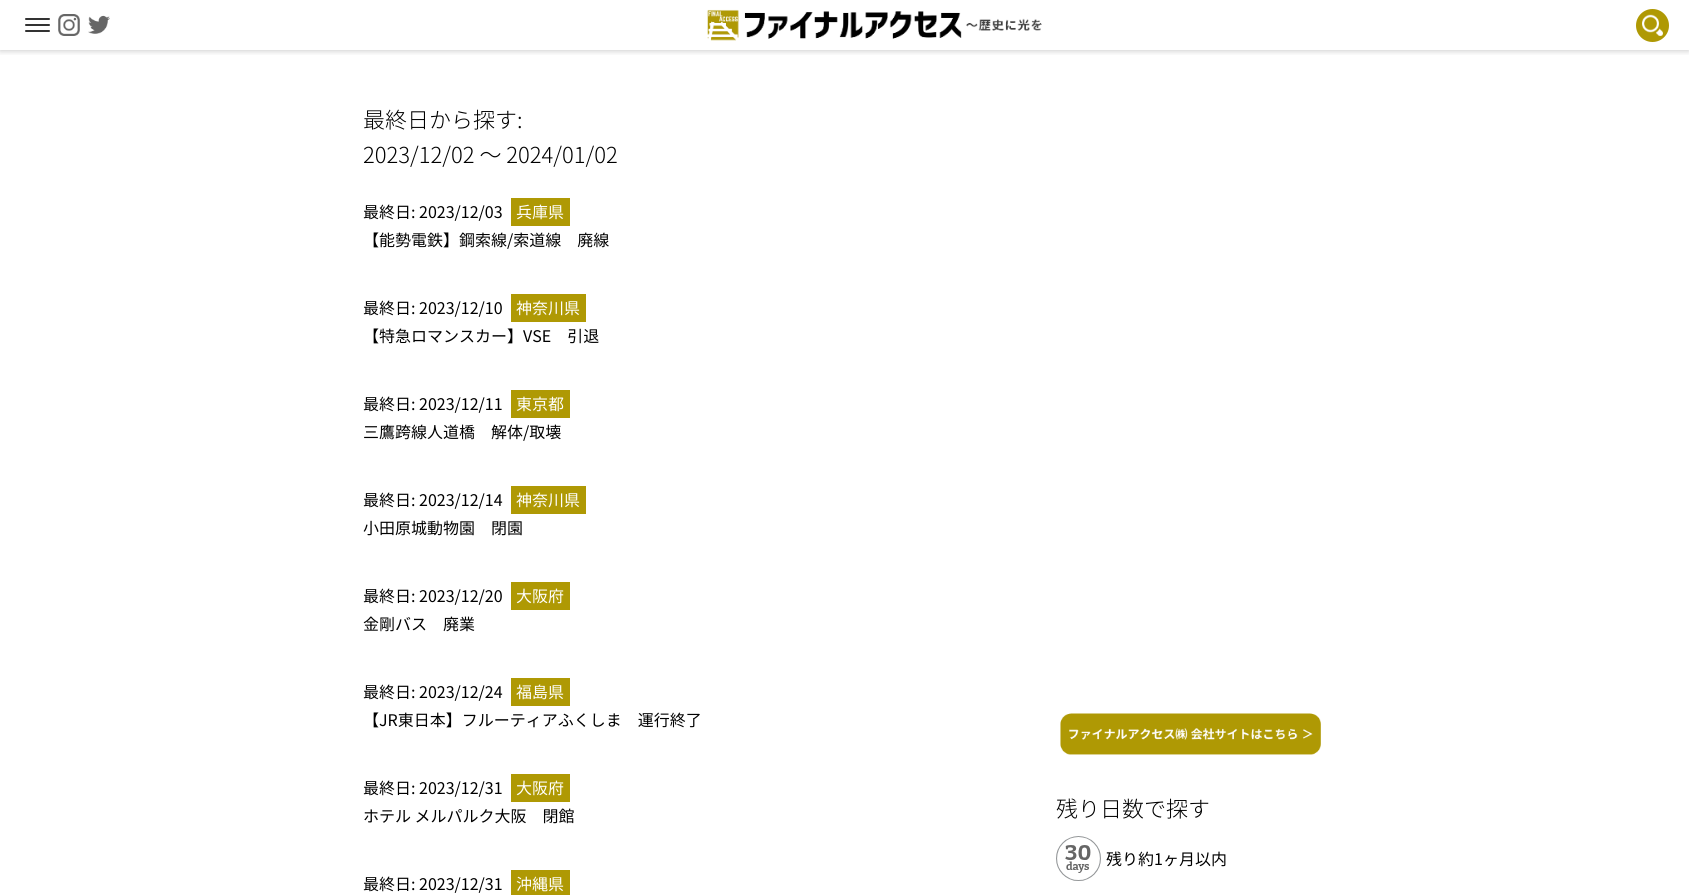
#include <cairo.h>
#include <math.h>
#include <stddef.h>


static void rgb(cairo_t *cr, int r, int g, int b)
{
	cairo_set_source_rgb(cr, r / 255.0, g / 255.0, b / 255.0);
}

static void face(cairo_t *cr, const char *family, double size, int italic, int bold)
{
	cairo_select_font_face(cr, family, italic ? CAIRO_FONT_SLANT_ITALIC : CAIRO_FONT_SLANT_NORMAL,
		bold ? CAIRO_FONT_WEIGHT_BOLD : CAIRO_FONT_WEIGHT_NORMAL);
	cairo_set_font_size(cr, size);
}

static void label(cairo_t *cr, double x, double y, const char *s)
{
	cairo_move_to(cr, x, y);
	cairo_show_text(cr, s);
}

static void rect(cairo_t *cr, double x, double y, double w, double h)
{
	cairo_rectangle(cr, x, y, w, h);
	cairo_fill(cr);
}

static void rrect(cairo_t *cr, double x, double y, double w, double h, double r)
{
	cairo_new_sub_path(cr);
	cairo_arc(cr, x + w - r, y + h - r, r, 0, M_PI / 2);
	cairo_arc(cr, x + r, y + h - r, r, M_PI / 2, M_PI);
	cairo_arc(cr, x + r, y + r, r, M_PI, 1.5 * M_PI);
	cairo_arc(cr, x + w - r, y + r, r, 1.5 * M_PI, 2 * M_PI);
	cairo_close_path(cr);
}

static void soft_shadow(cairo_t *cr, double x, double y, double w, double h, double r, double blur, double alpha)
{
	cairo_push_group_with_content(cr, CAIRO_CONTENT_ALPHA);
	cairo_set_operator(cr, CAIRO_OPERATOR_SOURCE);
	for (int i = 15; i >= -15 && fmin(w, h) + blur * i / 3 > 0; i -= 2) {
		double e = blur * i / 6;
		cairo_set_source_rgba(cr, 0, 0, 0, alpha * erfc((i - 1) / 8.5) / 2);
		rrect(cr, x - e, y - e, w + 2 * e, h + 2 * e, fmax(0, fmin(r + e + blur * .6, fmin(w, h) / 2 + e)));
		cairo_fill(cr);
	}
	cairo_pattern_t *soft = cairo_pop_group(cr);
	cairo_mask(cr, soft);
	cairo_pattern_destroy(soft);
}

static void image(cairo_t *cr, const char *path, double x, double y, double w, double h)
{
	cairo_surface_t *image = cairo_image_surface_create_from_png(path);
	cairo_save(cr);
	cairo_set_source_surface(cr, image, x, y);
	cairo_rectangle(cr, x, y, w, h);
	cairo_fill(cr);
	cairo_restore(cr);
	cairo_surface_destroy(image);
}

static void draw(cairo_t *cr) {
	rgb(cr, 255, 255, 255);
	cairo_paint(cr);
	cairo_save(cr);
	cairo_rectangle(cr, 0, 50, 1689, 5);
	cairo_clip(cr);
	rgb(cr, 0, 0, 0);
	soft_shadow(cr, 0, 1, 1689, 50, 0, 3, 0.2);
	cairo_restore(cr);
	rgb(cr, 51, 51, 51);
	rrect(cr, 25, 18, 25, 2, 1);
	cairo_fill(cr);
	rrect(cr, 25, 24, 25, 2, 1);
	cairo_fill(cr);
	rrect(cr, 25, 30, 25, 2, 1);
	cairo_fill(cr);
	image(cr, "image0.png", 58, 14, 22, 22);
	image(cr, "image1.png", 88, 15, 22, 19);
	image(cr, "image2.png", 707, 9, 335, 32);
	rgb(cr, 175, 153, 4);
	cairo_arc(cr, 1652.5, 25.5, 16.5, 0, 2 * M_PI);
	cairo_fill(cr);
	image(cr, "image3.png", 1642, 14, 21, 22);
	face(cr, "Noto Sans JP Light", 22, 0, 0);
	rgb(cr, 0, 0, 0);
	label(cr, 363, 128, "最終日から探す:");
	label(cr, 363, 163, "2023/12/02 〜 2024/01/02");
	face(cr, "Noto Sans JP", 16, 0, 0);
	label(cr, 363, 218, "最終日: 2023/12/03");
	rgb(cr, 175, 153, 4);
	rect(cr, 511, 198, 59, 28);
	rgb(cr, 255, 255, 255);
	label(cr, 516, 218, "兵庫県");
	rgb(cr, 0, 0, 0);
	label(cr, 363, 246, "【能勢電鉄】鋼索線/索道線　廃線");
	label(cr, 363, 314, "最終日: 2023/12/10");
	rgb(cr, 175, 153, 4);
	rect(cr, 511, 294, 75, 28);
	rgb(cr, 255, 255, 255);
	label(cr, 516, 314, "神奈川県");
	rgb(cr, 0, 0, 0);
	label(cr, 363, 342, "【特急ロマンスカー】VSE　引退");
	label(cr, 363, 410, "最終日: 2023/12/11");
	rgb(cr, 175, 153, 4);
	rect(cr, 511, 390, 59, 28);
	rgb(cr, 255, 255, 255);
	label(cr, 516, 410, "東京都");
	rgb(cr, 0, 0, 0);
	label(cr, 363, 438, "三鷹跨線人道橋　解体/取壊");
	label(cr, 363, 506, "最終日: 2023/12/14");
	rgb(cr, 175, 153, 4);
	rect(cr, 511, 486, 75, 28);
	rgb(cr, 255, 255, 255);
	label(cr, 516, 506, "神奈川県");
	rgb(cr, 0, 0, 0);
	label(cr, 363, 534, "小田原城動物園　閉園");
	label(cr, 363, 602, "最終日: 2023/12/20");
	rgb(cr, 175, 153, 4);
	rect(cr, 511, 582, 59, 28);
	rgb(cr, 255, 255, 255);
	label(cr, 516, 602, "大阪府");
	rgb(cr, 0, 0, 0);
	label(cr, 363, 630, "金剛バス　廃業");
	label(cr, 363, 698, "最終日: 2023/12/24");
	rgb(cr, 175, 153, 4);
	rect(cr, 511, 678, 59, 28);
	rgb(cr, 255, 255, 255);
	label(cr, 516, 698, "福島県");
	rgb(cr, 0, 0, 0);
	label(cr, 363, 726, "【JR東日本】フルーティアふくしま　運行終了");
	label(cr, 363, 794, "最終日: 2023/12/31");
	rgb(cr, 175, 153, 4);
	rect(cr, 511, 774, 59, 28);
	rgb(cr, 255, 255, 255);
	label(cr, 516, 794, "大阪府");
	rgb(cr, 0, 0, 0);
	label(cr, 363, 822, "ホテル メルパルク大阪　閉館");
	label(cr, 363, 890, "最終日: 2023/12/31");
	rgb(cr, 175, 153, 4);
	rect(cr, 511, 870, 59, 25);
	rgb(cr, 255, 255, 255);
	label(cr, 516, 890, "沖縄県");
	image(cr, "image4.png", 1060, 713, 261, 42);
	face(cr, "Noto Sans JP Light", 22, 0, 0);
	rgb(cr, 0, 0, 0);
	label(cr, 1056, 817, "残り日数で探す");
	image(cr, "image5.png", 1056, 836, 45, 45);
	face(cr, "Noto Sans JP", 16, 0, 0);
	label(cr, 1106, 865, "残り約1ヶ月以内");
}

int main(void) {
	cairo_surface_t *surface = cairo_image_surface_create(CAIRO_FORMAT_RGB24, 1689, 895);
	cairo_t *cr = cairo_create(surface);
	cairo_font_options_t *options = cairo_font_options_create();
	cairo_font_options_set_hint_metrics(options, CAIRO_HINT_METRICS_OFF);
	cairo_font_options_set_hint_style(options, CAIRO_HINT_STYLE_NONE);
	cairo_set_font_options(cr, options);
	cairo_set_miter_limit(cr, 4);
	draw(cr);
	cairo_surface_write_to_png(surface, "render.png");
	cairo_font_options_destroy(options);
	cairo_destroy(cr);
	cairo_surface_destroy(surface);
	return 0;
}
